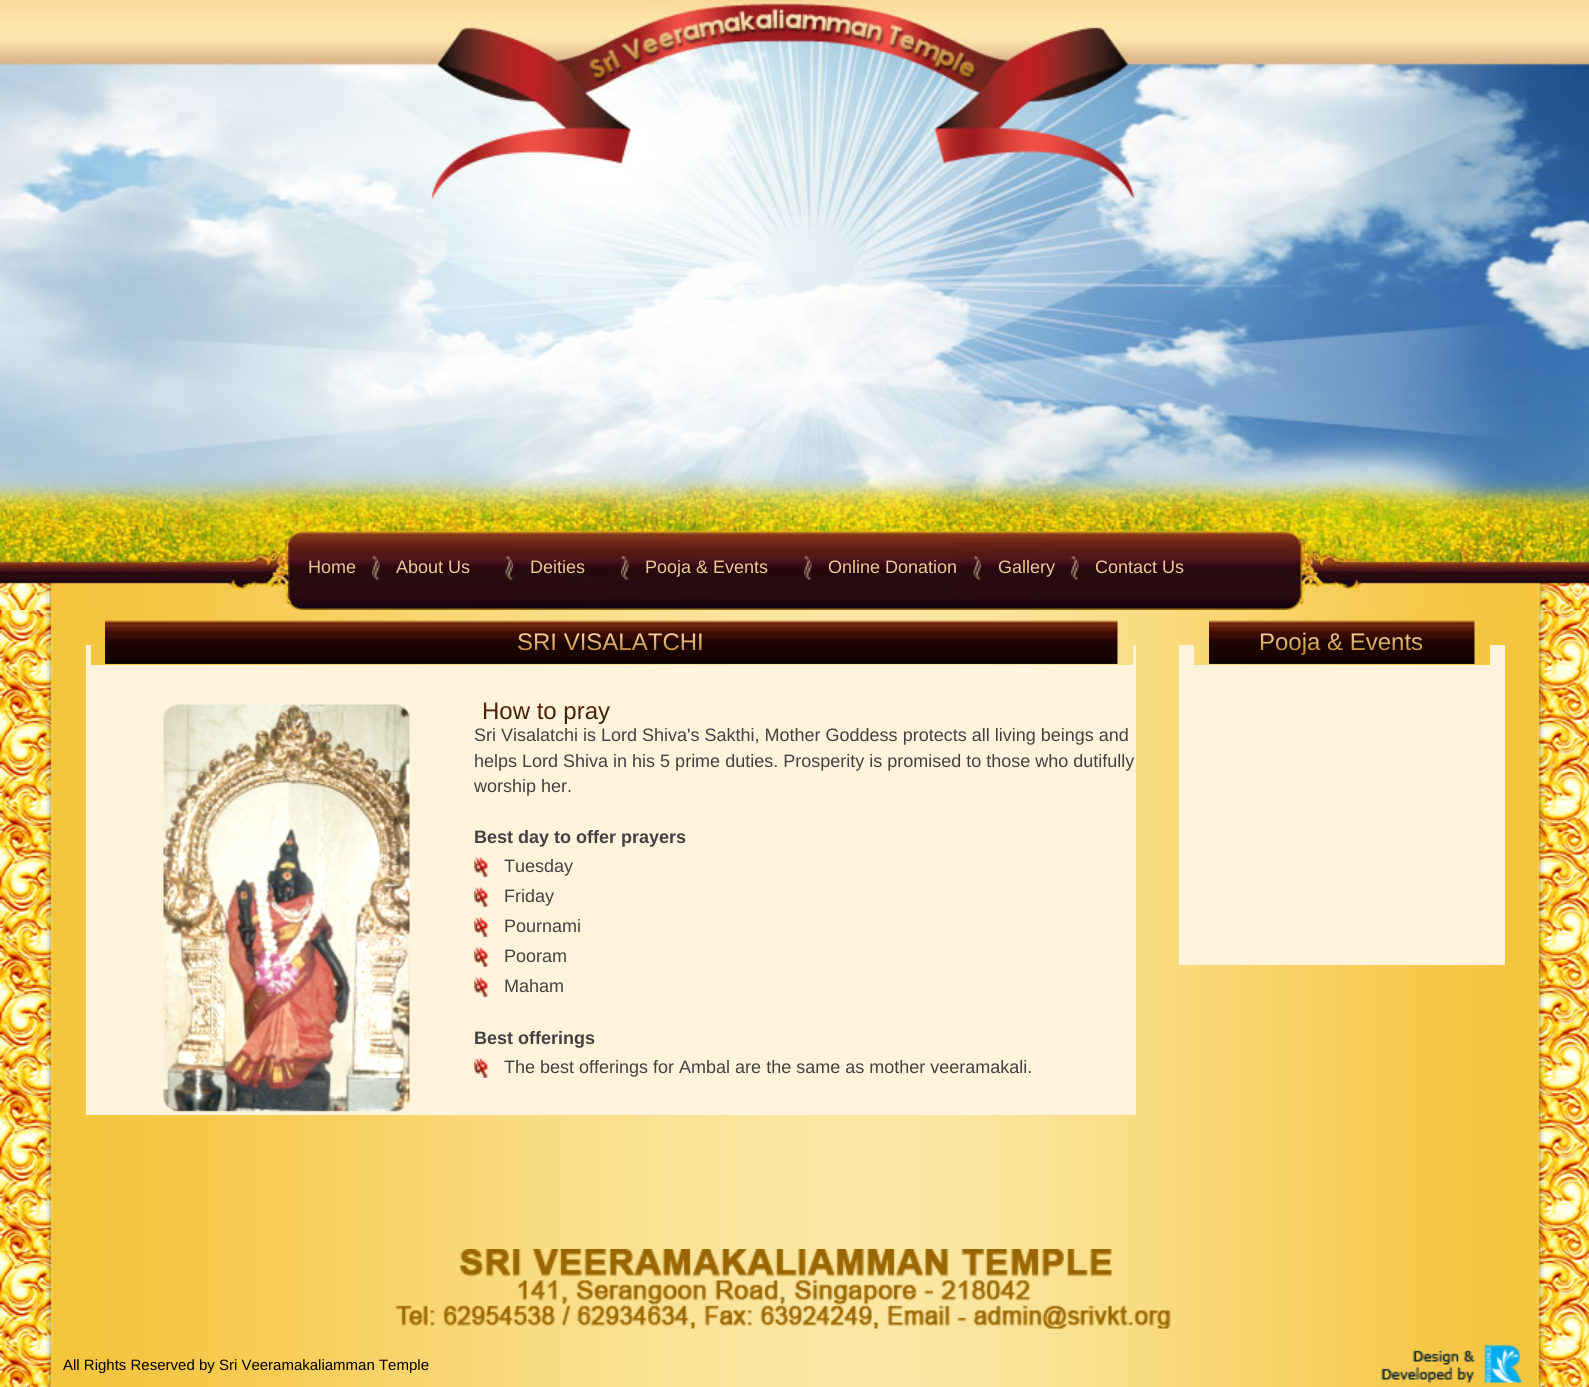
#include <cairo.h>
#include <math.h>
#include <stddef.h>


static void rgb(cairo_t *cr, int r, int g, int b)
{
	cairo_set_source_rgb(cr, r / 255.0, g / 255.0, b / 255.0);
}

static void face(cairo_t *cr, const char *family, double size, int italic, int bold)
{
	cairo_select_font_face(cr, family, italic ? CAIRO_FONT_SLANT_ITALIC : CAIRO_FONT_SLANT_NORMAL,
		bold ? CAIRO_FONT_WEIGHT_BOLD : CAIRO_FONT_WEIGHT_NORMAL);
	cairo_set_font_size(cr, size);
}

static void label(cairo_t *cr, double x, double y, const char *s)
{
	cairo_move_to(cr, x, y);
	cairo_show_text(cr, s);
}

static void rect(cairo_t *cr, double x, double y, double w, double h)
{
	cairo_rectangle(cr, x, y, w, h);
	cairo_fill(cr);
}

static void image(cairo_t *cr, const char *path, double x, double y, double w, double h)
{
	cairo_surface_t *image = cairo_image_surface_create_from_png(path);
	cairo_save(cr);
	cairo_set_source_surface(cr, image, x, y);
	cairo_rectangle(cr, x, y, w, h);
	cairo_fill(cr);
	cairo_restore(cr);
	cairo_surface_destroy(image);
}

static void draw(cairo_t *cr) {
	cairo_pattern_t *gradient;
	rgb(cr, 255, 255, 255);
	cairo_paint(cr);
	image(cr, "image0.png", 0, 610, 1589, 777);
	image(cr, "image1.png", 0, 0, 1589, 610);
	face(cr, "Liberation Sans", 18, 0, 0);
	rgb(cr, 236, 204, 148);
	label(cr, 308, 573, "Home");
	image(cr, "image2.png", 372, 556, 8, 24);
	label(cr, 396, 573, "About Us");
	image(cr, "image3.png", 505, 556, 8, 24);
	label(cr, 530, 573, "Deities");
	image(cr, "image4.png", 621, 556, 8, 24);
	label(cr, 645, 573, "Pooja & Events");
	image(cr, "image5.png", 804, 556, 8, 24);
	label(cr, 828, 573, "Online Donation");
	image(cr, "image6.png", 973, 556, 8, 24);
	label(cr, 998, 573, "Gallery");
	image(cr, "image7.png", 1071, 556, 8, 24);
	label(cr, 1095, 573, "Contact Us");
	image(cr, "image8.png", 46, 610, 1498, 777);
	image(cr, "image9.png", 105, 620, 1013, 44);
	face(cr, "Liberation Sans", 24, 0, 0);
	gradient = cairo_pattern_create_linear(610, 629, 610, 655);
	cairo_pattern_add_color_stop_rgba(gradient, 0, 1, 0.925, 0.753, 1);
	cairo_pattern_add_color_stop_rgba(gradient, 1, 0.725, 0.475, 0.125, 1);
	cairo_set_source(cr, gradient);
	cairo_pattern_destroy(gradient);
	label(cr, 517, 650, "SRI VISALATCHI");
	rgb(cr, 255, 244, 219);
	rect(cr, 86, 645, 5, 20);
	rect(cr, 1133, 645, 3, 20);
	rect(cr, 86, 665, 1050, 450);
	image(cr, "image10.png", 163, 704, 247, 408);
	gradient = cairo_pattern_create_linear(546, 698, 546, 723);
	cairo_pattern_add_color_stop_rgba(gradient, 0, 0.427, 0.141, 0.055, 1);
	cairo_pattern_add_color_stop_rgba(gradient, 1, 0.188, 0.122, 0.043, 1);
	cairo_set_source(cr, gradient);
	cairo_pattern_destroy(gradient);
	label(cr, 482, 719, "How to pray");
	face(cr, "Liberation Sans", 18, 0, 0);
	rgb(cr, 65, 65, 65);
	label(cr, 474, 741, "Sri Visalatchi is Lord Shiva's Sakthi, Mother Goddess protects all living beings and");
	label(cr, 474, 767, "helps Lord Shiva in his 5 prime duties. Prosperity is promised to those who dutifully");
	label(cr, 474, 792, "worship her.");
	face(cr, "Liberation Sans", 18, 0, 1);
	label(cr, 474, 843, "Best day to offer prayers");
	image(cr, "image11.png", 474, 857, 14, 20);
	face(cr, "Liberation Sans", 18, 0, 0);
	label(cr, 504, 872, "Tuesday");
	image(cr, "image11.png", 474, 887, 14, 20);
	label(cr, 504, 902, "Friday");
	image(cr, "image11.png", 474, 917, 14, 20);
	label(cr, 504, 932, "Pournami");
	image(cr, "image11.png", 474, 947, 14, 20);
	label(cr, 504, 962, "Pooram");
	image(cr, "image11.png", 474, 977, 14, 20);
	label(cr, 504, 992, "Maham");
	face(cr, "Liberation Sans", 18, 0, 1);
	label(cr, 474, 1044, "Best offerings");
	image(cr, "image11.png", 474, 1058, 14, 20);
	face(cr, "Liberation Sans", 18, 0, 0);
	label(cr, 504, 1073, "The best offerings for Ambal are the same as mother veeramakali.");
	image(cr, "image12.png", 1209, 620, 266, 44);
	face(cr, "Liberation Sans", 24, 0, 0);
	gradient = cairo_pattern_create_linear(1341, 629, 1341, 655);
	cairo_pattern_add_color_stop_rgba(gradient, 0, 1, 0.925, 0.753, 1);
	cairo_pattern_add_color_stop_rgba(gradient, 1, 0.725, 0.475, 0.125, 1);
	cairo_set_source(cr, gradient);
	cairo_pattern_destroy(gradient);
	label(cr, 1259, 650, "Pooja & Events");
	rgb(cr, 255, 244, 219);
	rect(cr, 1179, 645, 15, 20);
	rect(cr, 1490, 645, 15, 20);
	rect(cr, 1179, 665, 326, 300);
	image(cr, "image13.png", 395, 1249, 776, 80);
	face(cr, "Liberation Sans", 15, 0, 0);
	rgb(cr, 0, 0, 0);
	label(cr, 63, 1370, "All Rights Reserved by Sri Veeramakaliamman Temple");
	image(cr, "image14.png", 1381, 1345, 142, 38);
}

int main(void) {
	cairo_surface_t *surface = cairo_image_surface_create(CAIRO_FORMAT_RGB24, 1589, 1387);
	cairo_t *cr = cairo_create(surface);
	cairo_font_options_t *options = cairo_font_options_create();
	cairo_font_options_set_hint_metrics(options, CAIRO_HINT_METRICS_OFF);
	cairo_font_options_set_hint_style(options, CAIRO_HINT_STYLE_NONE);
	cairo_set_font_options(cr, options);
	cairo_set_miter_limit(cr, 4);
	draw(cr);
	cairo_surface_write_to_png(surface, "render.png");
	cairo_font_options_destroy(options);
	cairo_destroy(cr);
	cairo_surface_destroy(surface);
	return 0;
}
